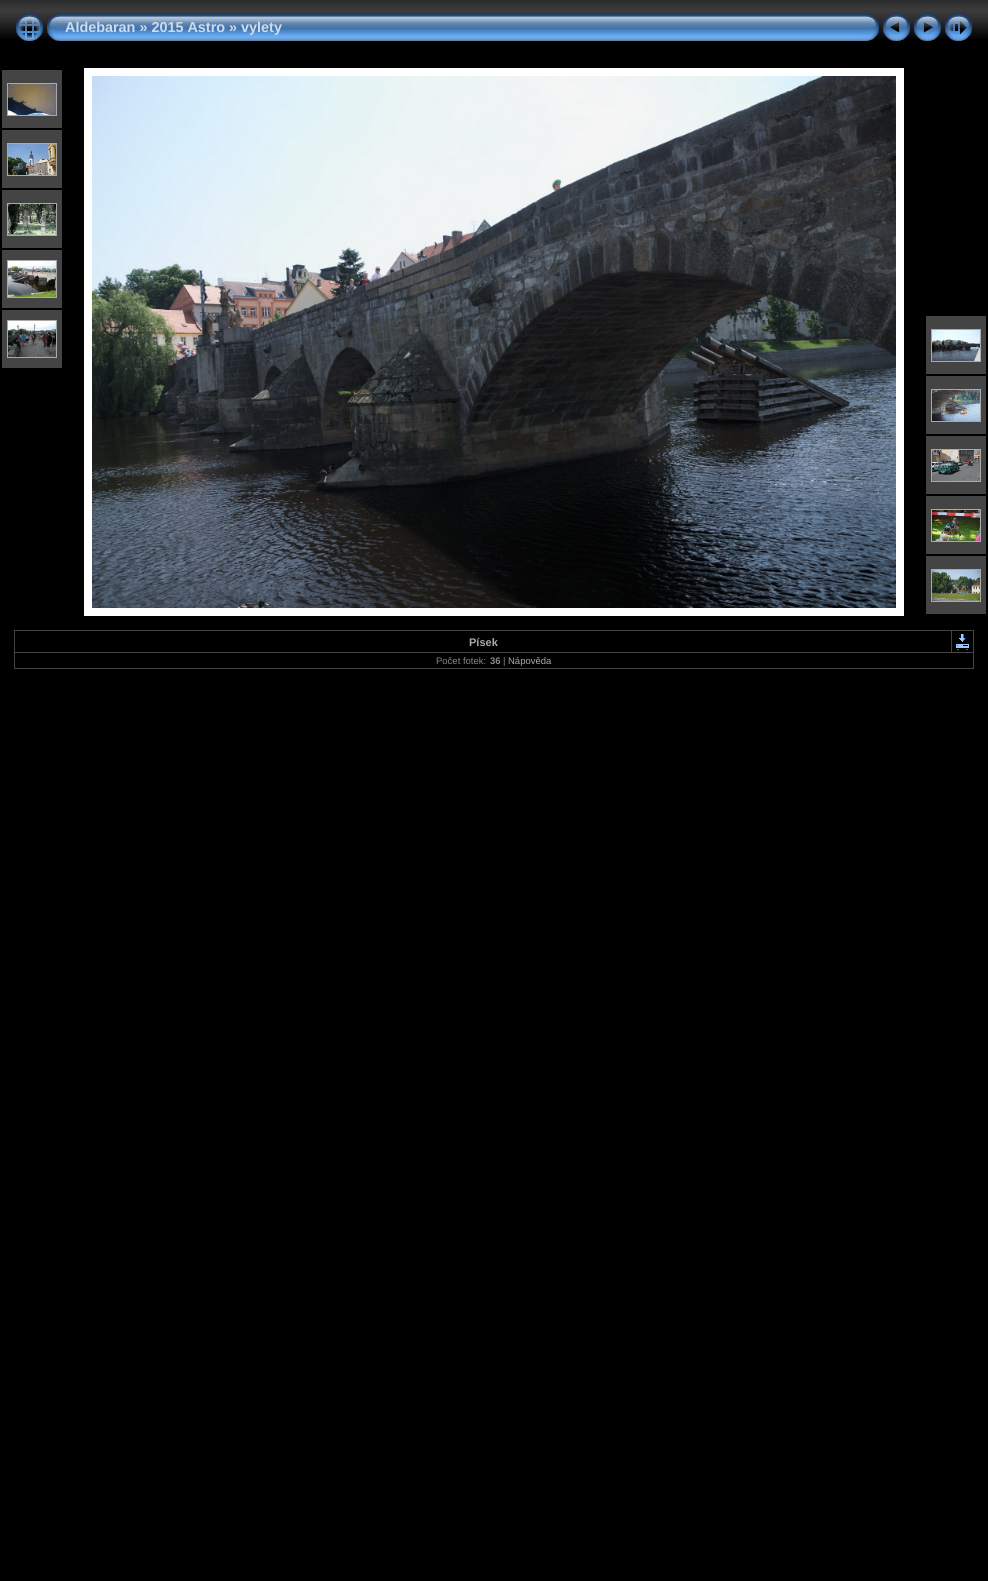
#include <cairo.h>
#include <math.h>
#include <stddef.h>


static void rgb(cairo_t *cr, int r, int g, int b)
{
	cairo_set_source_rgb(cr, r / 255.0, g / 255.0, b / 255.0);
}

static void face(cairo_t *cr, const char *family, double size, int italic, int bold)
{
	cairo_select_font_face(cr, family, italic ? CAIRO_FONT_SLANT_ITALIC : CAIRO_FONT_SLANT_NORMAL,
		bold ? CAIRO_FONT_WEIGHT_BOLD : CAIRO_FONT_WEIGHT_NORMAL);
	cairo_set_font_size(cr, size);
}

static void label(cairo_t *cr, double x, double y, const char *s)
{
	cairo_move_to(cr, x, y);
	cairo_show_text(cr, s);
}

static void rect(cairo_t *cr, double x, double y, double w, double h)
{
	cairo_rectangle(cr, x, y, w, h);
	cairo_fill(cr);
}

static void image(cairo_t *cr, const char *path, double x, double y, double w, double h)
{
	cairo_surface_t *image = cairo_image_surface_create_from_png(path);
	cairo_save(cr);
	cairo_set_source_surface(cr, image, x, y);
	cairo_rectangle(cr, x, y, w, h);
	cairo_fill(cr);
	cairo_restore(cr);
	cairo_surface_destroy(image);
}

static void draw(cairo_t *cr) {
	rgb(cr, 0, 0, 0);
	cairo_paint(cr);
	image(cr, "image0.png", 0, 0, 988, 39);
	image(cr, "image1.png", 16, 14, 27, 27);
	image(cr, "image2.png", 47, 14, 18, 27);
	image(cr, "image3.png", 65, 14, 796, 27);
	face(cr, "Liberation Sans", 14.4, 0, 1);
	rgb(cr, 204, 220, 238);
	label(cr, 65, 32, "Aldebaran » 2015 Astro » vylety");
	image(cr, "image4.png", 861, 14, 18, 27);
	image(cr, "image5.png", 883, 14, 27, 27);
	image(cr, "image6.png", 914, 14, 27, 27);
	image(cr, "image7.png", 945, 14, 27, 27);
	rgb(cr, 68, 68, 68);
	rect(cr, 2, 70, 60, 58);
	cairo_rectangle(cr, 7.5, 83.5, 49, 32);
	rgb(cr, 170, 170, 170);
	cairo_set_line_width(cr, 1);
	cairo_stroke(cr);
	image(cr, "image8.png", 8, 84, 48, 31);
	rgb(cr, 68, 68, 68);
	rect(cr, 2, 130, 60, 58);
	cairo_rectangle(cr, 7.5, 143.5, 49, 32);
	rgb(cr, 170, 170, 170);
	cairo_stroke(cr);
	image(cr, "image9.png", 8, 144, 48, 31);
	rgb(cr, 68, 68, 68);
	rect(cr, 2, 190, 60, 58);
	cairo_rectangle(cr, 7.5, 203.5, 49, 32);
	rgb(cr, 170, 170, 170);
	cairo_stroke(cr);
	image(cr, "image10.png", 8, 204, 48, 31);
	rgb(cr, 68, 68, 68);
	rect(cr, 2, 250, 60, 58);
	cairo_rectangle(cr, 7.5, 260.5, 49, 37);
	rgb(cr, 170, 170, 170);
	cairo_stroke(cr);
	image(cr, "image11.png", 8, 261, 48, 36);
	rgb(cr, 68, 68, 68);
	rect(cr, 2, 310, 60, 58);
	cairo_rectangle(cr, 7.5, 320.5, 49, 37);
	rgb(cr, 170, 170, 170);
	cairo_stroke(cr);
	image(cr, "image12.png", 8, 321, 48, 36);
	cairo_rectangle(cr, 88, 72, 812, 540);
	rgb(cr, 255, 255, 255);
	cairo_set_line_width(cr, 8);
	cairo_stroke(cr);
	image(cr, "image13.png", 92, 76, 804, 532);
	rgb(cr, 68, 68, 68);
	rect(cr, 926, 316, 60, 58);
	cairo_rectangle(cr, 931.5, 329.5, 49, 32);
	rgb(cr, 170, 170, 170);
	cairo_set_line_width(cr, 1);
	cairo_stroke(cr);
	image(cr, "image14.png", 932, 330, 48, 31);
	rgb(cr, 68, 68, 68);
	rect(cr, 926, 376, 60, 58);
	cairo_rectangle(cr, 931.5, 389.5, 49, 32);
	rgb(cr, 170, 170, 170);
	cairo_stroke(cr);
	image(cr, "image15.png", 932, 390, 48, 31);
	rgb(cr, 68, 68, 68);
	rect(cr, 926, 436, 60, 58);
	cairo_rectangle(cr, 931.5, 449.5, 49, 32);
	rgb(cr, 170, 170, 170);
	cairo_stroke(cr);
	image(cr, "image16.png", 932, 450, 48, 31);
	rgb(cr, 68, 68, 68);
	rect(cr, 926, 496, 60, 58);
	cairo_rectangle(cr, 931.5, 509.5, 49, 32);
	rgb(cr, 170, 170, 170);
	cairo_stroke(cr);
	image(cr, "image17.png", 932, 510, 48, 31);
	rgb(cr, 68, 68, 68);
	rect(cr, 926, 556, 60, 58);
	cairo_rectangle(cr, 931.5, 569.5, 49, 32);
	rgb(cr, 170, 170, 170);
	cairo_stroke(cr);
	image(cr, "image18.png", 932, 570, 48, 31);
	rgb(cr, 68, 68, 68);
	rect(cr, 14, 630, 960, 1);
	rect(cr, 973, 630, 1, 39);
	rect(cr, 14, 668, 960, 1);
	rect(cr, 14, 630, 1, 39);
	face(cr, "Liberation Sans", 11, 0, 1);
	rgb(cr, 170, 170, 170);
	label(cr, 469, 646, "Písek");
	rgb(cr, 68, 68, 68);
	rect(cr, 14, 652, 960, 1);
	rect(cr, 951, 630, 1, 23);
	image(cr, "image19.png", 956, 634, 13, 16);
	face(cr, "Liberation Sans", 9.5, 0, 0);
	rgb(cr, 136, 136, 136);
	label(cr, 436, 664, "Počet fotek:");
	face(cr, "Liberation Sans", 9.5, 0, 1);
	label(cr, 490, 664, "36");
	face(cr, "Liberation Sans", 9.5, 0, 0);
	label(cr, 503, 664, "|");
	rgb(cr, 170, 170, 170);
	label(cr, 508, 664, "Nápověda");
}

int main(void) {
	cairo_surface_t *surface = cairo_image_surface_create(CAIRO_FORMAT_RGB24, 988, 1581);
	cairo_t *cr = cairo_create(surface);
	cairo_font_options_t *options = cairo_font_options_create();
	cairo_font_options_set_hint_metrics(options, CAIRO_HINT_METRICS_OFF);
	cairo_font_options_set_hint_style(options, CAIRO_HINT_STYLE_NONE);
	cairo_set_font_options(cr, options);
	cairo_set_miter_limit(cr, 4);
	draw(cr);
	cairo_surface_write_to_png(surface, "render.png");
	cairo_font_options_destroy(options);
	cairo_destroy(cr);
	cairo_surface_destroy(surface);
	return 0;
}
